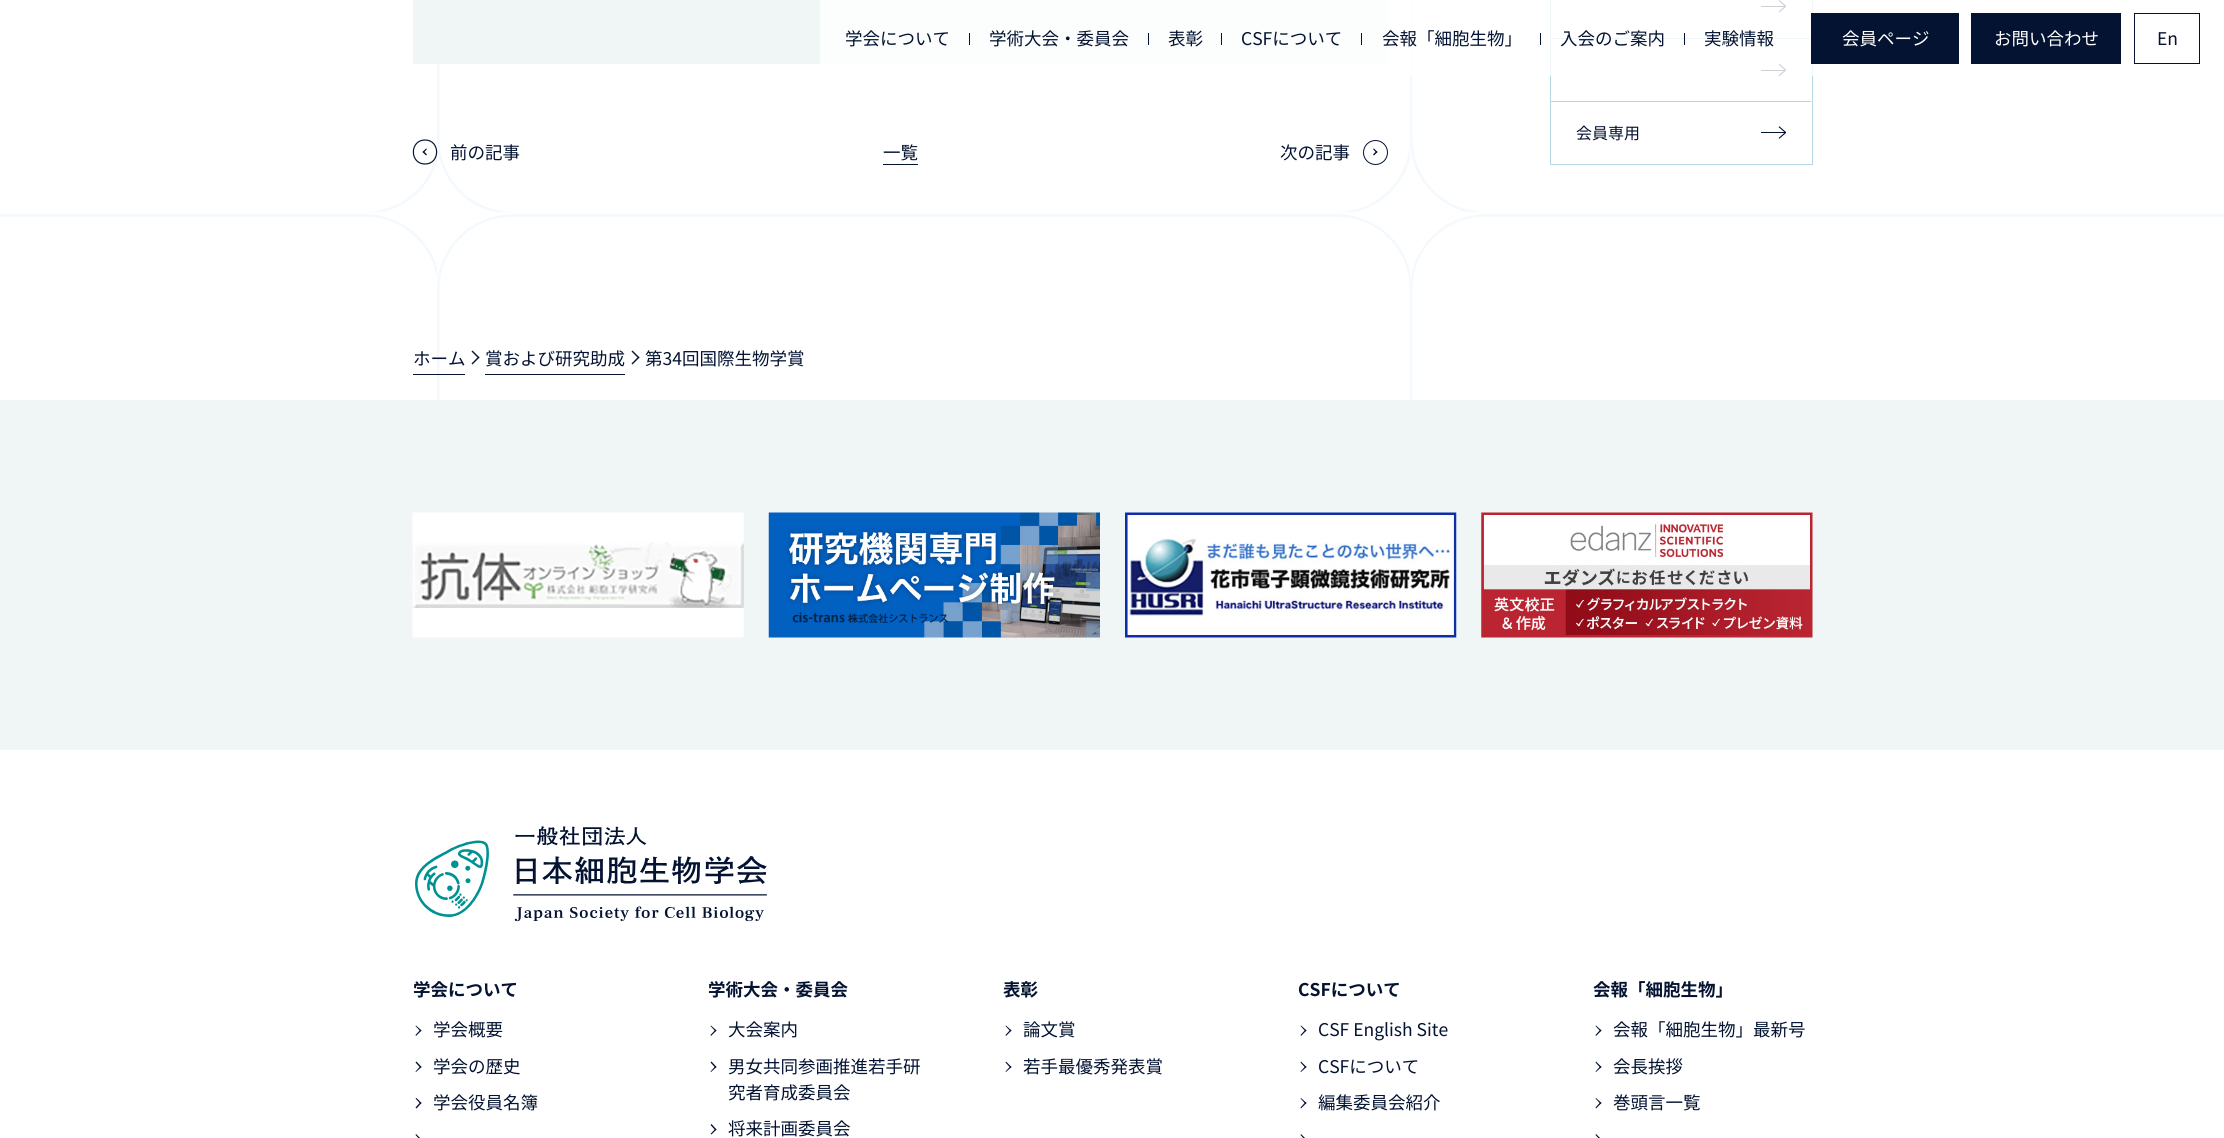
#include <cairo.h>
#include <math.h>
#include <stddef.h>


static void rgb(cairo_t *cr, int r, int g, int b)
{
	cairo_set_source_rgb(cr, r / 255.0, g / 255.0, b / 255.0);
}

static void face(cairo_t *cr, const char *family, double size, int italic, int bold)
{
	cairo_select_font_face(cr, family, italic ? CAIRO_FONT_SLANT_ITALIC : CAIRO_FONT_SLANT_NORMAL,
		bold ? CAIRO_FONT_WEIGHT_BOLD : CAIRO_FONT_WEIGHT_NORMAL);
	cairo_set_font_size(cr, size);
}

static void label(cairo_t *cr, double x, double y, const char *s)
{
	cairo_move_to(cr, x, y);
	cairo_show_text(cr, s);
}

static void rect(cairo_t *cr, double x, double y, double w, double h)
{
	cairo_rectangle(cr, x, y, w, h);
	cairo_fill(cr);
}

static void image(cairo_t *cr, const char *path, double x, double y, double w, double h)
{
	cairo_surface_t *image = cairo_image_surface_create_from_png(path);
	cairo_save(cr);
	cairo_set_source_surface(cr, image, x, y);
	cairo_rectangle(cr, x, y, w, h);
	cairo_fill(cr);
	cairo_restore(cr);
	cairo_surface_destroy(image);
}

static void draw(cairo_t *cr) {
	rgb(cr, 255, 255, 255);
	cairo_paint(cr);
	image(cr, "image0.png", 0, 0, 2224, 400);
	cairo_rectangle(cr, 1550.5, -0.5, 262, 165);
	rgb(cr, 180, 217, 226);
	cairo_set_line_width(cr, 1);
	cairo_stroke(cr);
	image(cr, "image1.png", 1761, 0, 25, 13);
	rect(cr, 1551, 38, 260, 1);
	image(cr, "image2.png", 1761, 64, 25, 12);
	rgb(cr, 240, 245, 246);
	rect(cr, 413, 0, 975, 64);
	cairo_set_source_rgba(cr, 1, 1, 1, 0.8);
	rect(cr, 820, 0, 993, 76);
	face(cr, "Noto Sans JP", 17.5, 0, 0);
	rgb(cr, 4, 19, 50);
	label(cr, 845, 45, "学会について");
	rect(cr, 969, 33, 1, 12);
	label(cr, 989, 45, "学術大会・委員会");
	rect(cr, 1148, 33, 1, 12);
	label(cr, 1168, 45, "表彰");
	rect(cr, 1221, 33, 1, 12);
	label(cr, 1241, 45, "CSFについて");
	rect(cr, 1361, 33, 1, 12);
	label(cr, 1382, 45, "会報「細胞生物」");
	rect(cr, 1540, 33, 1, 12);
	label(cr, 1560, 45, "入会のご案内");
	rect(cr, 1684, 33, 1, 12);
	label(cr, 1704, 45, "実験情報");
	rect(cr, 1811, 13, 148, 51);
	rgb(cr, 255, 255, 255);
	label(cr, 1842, 45, "会員ページ");
	rgb(cr, 4, 19, 50);
	rect(cr, 1971, 13, 150, 51);
	rgb(cr, 255, 255, 255);
	label(cr, 1994, 45, "お問い合わせ");
	cairo_rectangle(cr, 2134.5, 13.5, 65, 50);
	rgb(cr, 4, 19, 50);
	cairo_stroke(cr);
	label(cr, 2157, 45, "En");
	rgb(cr, 180, 217, 226);
	rect(cr, 1551, 101, 260, 1);
	face(cr, "Noto Sans JP", 16, 0, 0);
	rgb(cr, 4, 19, 50);
	label(cr, 1576, 139, "会員専用");
	image(cr, "image3.png", 1761, 126, 25, 13);
	rgb(cr, 255, 255, 255);
	cairo_new_path(cr);
	cairo_move_to(cr, 425, 164.5);
	cairo_curve_to(cr, 408.5, 164.5, 408.5, 139.5, 425, 139.5);
	cairo_curve_to(cr, 441.5, 139.5, 441.5, 164.5, 425, 164.5);
	cairo_close_path(cr);
	cairo_fill(cr);
	cairo_new_path(cr);
	cairo_move_to(cr, 425, 164);
	cairo_curve_to(cr, 409.5, 164, 409.5, 140, 425, 140);
	cairo_curve_to(cr, 440.5, 140, 440.5, 164, 425, 164);
	cairo_close_path(cr);
	rgb(cr, 4, 19, 50);
	cairo_set_line_width(cr, 1.2);
	cairo_stroke(cr);
	cairo_new_path(cr);
	cairo_move_to(cr, 426, 155.5);
	cairo_line_to(cr, 422.5, 152);
	cairo_line_to(cr, 423.5, 151);
	cairo_line_to(cr, 427, 154.5);
	cairo_close_path(cr);
	cairo_fill(cr);
	cairo_new_path(cr);
	cairo_move_to(cr, 423.5, 153);
	cairo_line_to(cr, 422.5, 152);
	cairo_line_to(cr, 426, 148.5);
	cairo_line_to(cr, 427, 149);
	cairo_close_path(cr);
	cairo_fill(cr);
	face(cr, "Noto Sans JP", 17.5, 0, 0);
	label(cr, 450, 159, "前の記事");
	rect(cr, 883, 164, 35, 1);
	label(cr, 883, 159, "一覧");
	label(cr, 1280, 159, "次の記事");
	cairo_new_path(cr);
	cairo_arc(cr, 1375.5, 152.5, 12, 0, 2 * M_PI);
	cairo_set_line_width(cr, 1);
	cairo_stroke(cr);
	cairo_new_path(cr);
	cairo_move_to(cr, 1374, 148.5);
	cairo_line_to(cr, 1377.5, 152);
	cairo_line_to(cr, 1376.5, 153);
	cairo_line_to(cr, 1373, 149);
	cairo_close_path(cr);
	cairo_fill(cr);
	cairo_new_path(cr);
	cairo_move_to(cr, 1376.5, 151);
	cairo_line_to(cr, 1377.5, 152);
	cairo_line_to(cr, 1374, 155.5);
	cairo_line_to(cr, 1373, 154.5);
	cairo_close_path(cr);
	cairo_fill(cr);
	rect(cr, 413, 374, 52, 1);
	label(cr, 413, 365, "ホーム");
	cairo_new_path(cr);
	cairo_move_to(cr, 472.5, 350.5);
	cairo_line_to(cr, 479.5, 357.5);
	cairo_line_to(cr, 478.5, 358.5);
	cairo_line_to(cr, 471.5, 351.5);
	cairo_close_path(cr);
	cairo_fill(cr);
	cairo_new_path(cr);
	cairo_move_to(cr, 478.5, 356.5);
	cairo_line_to(cr, 479.5, 357.5);
	cairo_line_to(cr, 472.5, 364.5);
	cairo_line_to(cr, 471.5, 363.5);
	cairo_close_path(cr);
	cairo_fill(cr);
	rect(cr, 485, 374, 140, 1);
	label(cr, 485, 365, "賞および研究助成");
	cairo_new_path(cr);
	cairo_move_to(cr, 632.5, 350.5);
	cairo_line_to(cr, 639.5, 357.5);
	cairo_line_to(cr, 638.5, 358.5);
	cairo_line_to(cr, 631.5, 351.5);
	cairo_close_path(cr);
	cairo_fill(cr);
	cairo_new_path(cr);
	cairo_move_to(cr, 638.5, 356.5);
	cairo_line_to(cr, 639.5, 357.5);
	cairo_line_to(cr, 632.5, 364.5);
	cairo_line_to(cr, 631.5, 363.5);
	cairo_close_path(cr);
	cairo_fill(cr);
	label(cr, 645, 365, "第34回国際生物学賞");
	rgb(cr, 240, 245, 246);
	rect(cr, 0, 400, 2224, 350);
	image(cr, "image4.png", 412, 512, 332, 126);
	image(cr, "image5.png", 768, 512, 332, 126);
	image(cr, "image6.png", 1125, 512, 332, 126);
	image(cr, "image7.png", 1481, 512, 332, 126);
	image(cr, "image8.png", 415, 826, 352, 96);
	face(cr, "Noto Sans JP", 17.5, 0, 1);
	rgb(cr, 4, 19, 50);
	label(cr, 413, 996, "学会について");
	cairo_new_path(cr);
	cairo_move_to(cr, 416, 1025.5);
	cairo_line_to(cr, 421.5, 1030.5);
	cairo_line_to(cr, 420.5, 1031.5);
	cairo_line_to(cr, 415.5, 1026);
	cairo_close_path(cr);
	cairo_fill(cr);
	cairo_new_path(cr);
	cairo_move_to(cr, 420.5, 1029.5);
	cairo_line_to(cr, 421.5, 1030.5);
	cairo_line_to(cr, 416, 1036);
	cairo_line_to(cr, 415.5, 1035);
	cairo_close_path(cr);
	cairo_move_to(cr, 416.5, 1061.5);
	cairo_line_to(cr, 421.5, 1067);
	cairo_line_to(cr, 420.5, 1068);
	cairo_line_to(cr, 415.5, 1062.5);
	cairo_close_path(cr);
	cairo_fill(cr);
	face(cr, "Noto Sans JP", 17.5, 0, 0);
	label(cr, 433, 1036, "学会概要");
	cairo_new_path(cr);
	cairo_move_to(cr, 420.5, 1066);
	cairo_line_to(cr, 421.5, 1067);
	cairo_line_to(cr, 416, 1072);
	cairo_line_to(cr, 415.5, 1071.5);
	cairo_close_path(cr);
	cairo_move_to(cr, 416.5, 1098);
	cairo_line_to(cr, 421.5, 1103);
	cairo_line_to(cr, 420.5, 1104);
	cairo_line_to(cr, 415.5, 1098.5);
	cairo_close_path(cr);
	cairo_fill(cr);
	label(cr, 433, 1073, "学会の歴史");
	cairo_new_path(cr);
	cairo_move_to(cr, 420.5, 1102);
	cairo_line_to(cr, 421.5, 1103);
	cairo_line_to(cr, 416.5, 1108.5);
	cairo_line_to(cr, 415.5, 1107.5);
	cairo_close_path(cr);
	cairo_move_to(cr, 416, 1134);
	cairo_line_to(cr, 421.5, 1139.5);
	cairo_line_to(cr, 420.5, 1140.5);
	cairo_line_to(cr, 415.5, 1135);
	cairo_close_path(cr);
	cairo_fill(cr);
	label(cr, 433, 1109, "学会役員名簿");
	face(cr, "Noto Sans JP", 17.5, 0, 1);
	label(cr, 708, 996, "学術大会・委員会");
	cairo_new_path(cr);
	cairo_move_to(cr, 711, 1025.5);
	cairo_line_to(cr, 716.5, 1030.5);
	cairo_line_to(cr, 715.5, 1031.5);
	cairo_line_to(cr, 710.5, 1026);
	cairo_close_path(cr);
	cairo_fill(cr);
	cairo_new_path(cr);
	cairo_move_to(cr, 715.5, 1029.5);
	cairo_line_to(cr, 716.5, 1030.5);
	cairo_line_to(cr, 711, 1036);
	cairo_line_to(cr, 710.5, 1035);
	cairo_close_path(cr);
	cairo_move_to(cr, 711.5, 1061.5);
	cairo_line_to(cr, 716.5, 1067);
	cairo_line_to(cr, 715.5, 1068);
	cairo_line_to(cr, 710.5, 1062.5);
	cairo_close_path(cr);
	cairo_fill(cr);
	face(cr, "Noto Sans JP", 17.5, 0, 0);
	label(cr, 728, 1036, "大会案内");
	cairo_new_path(cr);
	cairo_move_to(cr, 715.5, 1066);
	cairo_line_to(cr, 716.5, 1067);
	cairo_line_to(cr, 711, 1072);
	cairo_line_to(cr, 710.5, 1071.5);
	cairo_close_path(cr);
	cairo_fill(cr);
	label(cr, 728, 1073, "男女共同参画推進若手研");
	label(cr, 728, 1099, "究者育成委員会");
	cairo_new_path(cr);
	cairo_move_to(cr, 711.5, 1124);
	cairo_line_to(cr, 716.5, 1129.5);
	cairo_line_to(cr, 715.5, 1130.5);
	cairo_line_to(cr, 710.5, 1125);
	cairo_close_path(cr);
	cairo_fill(cr);
	cairo_new_path(cr);
	cairo_move_to(cr, 715.5, 1128.5);
	cairo_line_to(cr, 716.5, 1129.5);
	cairo_line_to(cr, 711.5, 1134.5);
	cairo_line_to(cr, 710.5, 1134);
	cairo_close_path(cr);
	cairo_fill(cr);
	label(cr, 728, 1135, "将来計画委員会");
	face(cr, "Noto Sans JP", 17.5, 0, 1);
	label(cr, 1003, 996, "表彰");
	cairo_new_path(cr);
	cairo_move_to(cr, 1006, 1025.5);
	cairo_line_to(cr, 1011.5, 1030.5);
	cairo_line_to(cr, 1010.5, 1031.5);
	cairo_line_to(cr, 1005.5, 1026);
	cairo_close_path(cr);
	cairo_fill(cr);
	cairo_new_path(cr);
	cairo_move_to(cr, 1010.5, 1029.5);
	cairo_line_to(cr, 1011.5, 1030.5);
	cairo_line_to(cr, 1006, 1036);
	cairo_line_to(cr, 1005.5, 1035);
	cairo_close_path(cr);
	cairo_move_to(cr, 1006, 1061.5);
	cairo_line_to(cr, 1011.5, 1067);
	cairo_line_to(cr, 1010.5, 1068);
	cairo_line_to(cr, 1005.5, 1062.5);
	cairo_close_path(cr);
	cairo_fill(cr);
	face(cr, "Noto Sans JP", 17.5, 0, 0);
	label(cr, 1023, 1036, "論文賞");
	cairo_new_path(cr);
	cairo_move_to(cr, 1010.5, 1066);
	cairo_line_to(cr, 1011.5, 1067);
	cairo_line_to(cr, 1006, 1072);
	cairo_line_to(cr, 1005.5, 1071.5);
	cairo_close_path(cr);
	cairo_fill(cr);
	label(cr, 1023, 1073, "若手最優秀発表賞");
	face(cr, "Noto Sans JP", 17.5, 0, 1);
	label(cr, 1298, 996, "CSFについて");
	cairo_new_path(cr);
	cairo_move_to(cr, 1301, 1025.5);
	cairo_line_to(cr, 1306.5, 1030.5);
	cairo_line_to(cr, 1305.5, 1031.5);
	cairo_line_to(cr, 1300.5, 1026);
	cairo_close_path(cr);
	cairo_fill(cr);
	cairo_new_path(cr);
	cairo_move_to(cr, 1305.5, 1029.5);
	cairo_line_to(cr, 1306.5, 1030.5);
	cairo_line_to(cr, 1301, 1036);
	cairo_line_to(cr, 1300.5, 1035);
	cairo_close_path(cr);
	cairo_move_to(cr, 1301, 1061.5);
	cairo_line_to(cr, 1306.5, 1067);
	cairo_line_to(cr, 1305.5, 1068);
	cairo_line_to(cr, 1300.5, 1062.5);
	cairo_close_path(cr);
	cairo_fill(cr);
	face(cr, "Noto Sans JP", 17.5, 0, 0);
	label(cr, 1318, 1036, "CSF English Site");
	cairo_new_path(cr);
	cairo_move_to(cr, 1305.5, 1066);
	cairo_line_to(cr, 1306.5, 1067);
	cairo_line_to(cr, 1301, 1072);
	cairo_line_to(cr, 1300.5, 1071.5);
	cairo_close_path(cr);
	cairo_move_to(cr, 1301, 1098);
	cairo_line_to(cr, 1306.5, 1103);
	cairo_line_to(cr, 1305.5, 1104);
	cairo_line_to(cr, 1300.5, 1098.5);
	cairo_close_path(cr);
	cairo_fill(cr);
	label(cr, 1318, 1073, "CSFについて");
	cairo_new_path(cr);
	cairo_move_to(cr, 1305.5, 1102);
	cairo_line_to(cr, 1306.5, 1103);
	cairo_line_to(cr, 1301, 1108.5);
	cairo_line_to(cr, 1300.5, 1107.5);
	cairo_close_path(cr);
	cairo_move_to(cr, 1301, 1134);
	cairo_line_to(cr, 1306.5, 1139.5);
	cairo_line_to(cr, 1305.5, 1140.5);
	cairo_line_to(cr, 1300.5, 1135);
	cairo_close_path(cr);
	cairo_fill(cr);
	label(cr, 1318, 1109, "編集委員会紹介");
	face(cr, "Noto Sans JP", 17.5, 0, 1);
	label(cr, 1593, 996, "会報「細胞生物」");
	cairo_new_path(cr);
	cairo_move_to(cr, 1596, 1025.5);
	cairo_line_to(cr, 1601.5, 1030.5);
	cairo_line_to(cr, 1600.5, 1031.5);
	cairo_line_to(cr, 1595.5, 1026);
	cairo_close_path(cr);
	cairo_fill(cr);
	cairo_new_path(cr);
	cairo_move_to(cr, 1600.5, 1029.5);
	cairo_line_to(cr, 1601.5, 1030.5);
	cairo_line_to(cr, 1596, 1036);
	cairo_line_to(cr, 1595.5, 1035);
	cairo_close_path(cr);
	cairo_move_to(cr, 1596, 1061.5);
	cairo_line_to(cr, 1601.5, 1067);
	cairo_line_to(cr, 1600.5, 1068);
	cairo_line_to(cr, 1595.5, 1062.5);
	cairo_close_path(cr);
	cairo_fill(cr);
	face(cr, "Noto Sans JP", 17.5, 0, 0);
	label(cr, 1613, 1036, "会報「細胞生物」最新号");
	cairo_new_path(cr);
	cairo_move_to(cr, 1600.5, 1066);
	cairo_line_to(cr, 1601.5, 1067);
	cairo_line_to(cr, 1596, 1072);
	cairo_line_to(cr, 1595.5, 1071.5);
	cairo_close_path(cr);
	cairo_move_to(cr, 1596, 1098);
	cairo_line_to(cr, 1601.5, 1103);
	cairo_line_to(cr, 1600.5, 1104);
	cairo_line_to(cr, 1595.5, 1098.5);
	cairo_close_path(cr);
	cairo_fill(cr);
	label(cr, 1613, 1073, "会長挨拶");
	cairo_new_path(cr);
	cairo_move_to(cr, 1600.5, 1102);
	cairo_line_to(cr, 1601.5, 1103);
	cairo_line_to(cr, 1596, 1108.5);
	cairo_line_to(cr, 1595.5, 1107.5);
	cairo_close_path(cr);
	cairo_move_to(cr, 1596, 1134);
	cairo_line_to(cr, 1601.5, 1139.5);
	cairo_line_to(cr, 1600.5, 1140.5);
	cairo_line_to(cr, 1595.5, 1135);
	cairo_close_path(cr);
	cairo_fill(cr);
	label(cr, 1613, 1109, "巻頭言一覧");
}

int main(void) {
	cairo_surface_t *surface = cairo_image_surface_create(CAIRO_FORMAT_RGB24, 2224, 1138);
	cairo_t *cr = cairo_create(surface);
	cairo_font_options_t *options = cairo_font_options_create();
	cairo_font_options_set_hint_metrics(options, CAIRO_HINT_METRICS_OFF);
	cairo_font_options_set_hint_style(options, CAIRO_HINT_STYLE_NONE);
	cairo_set_font_options(cr, options);
	cairo_set_miter_limit(cr, 4);
	draw(cr);
	cairo_surface_write_to_png(surface, "render.png");
	cairo_font_options_destroy(options);
	cairo_destroy(cr);
	cairo_surface_destroy(surface);
	return 0;
}
